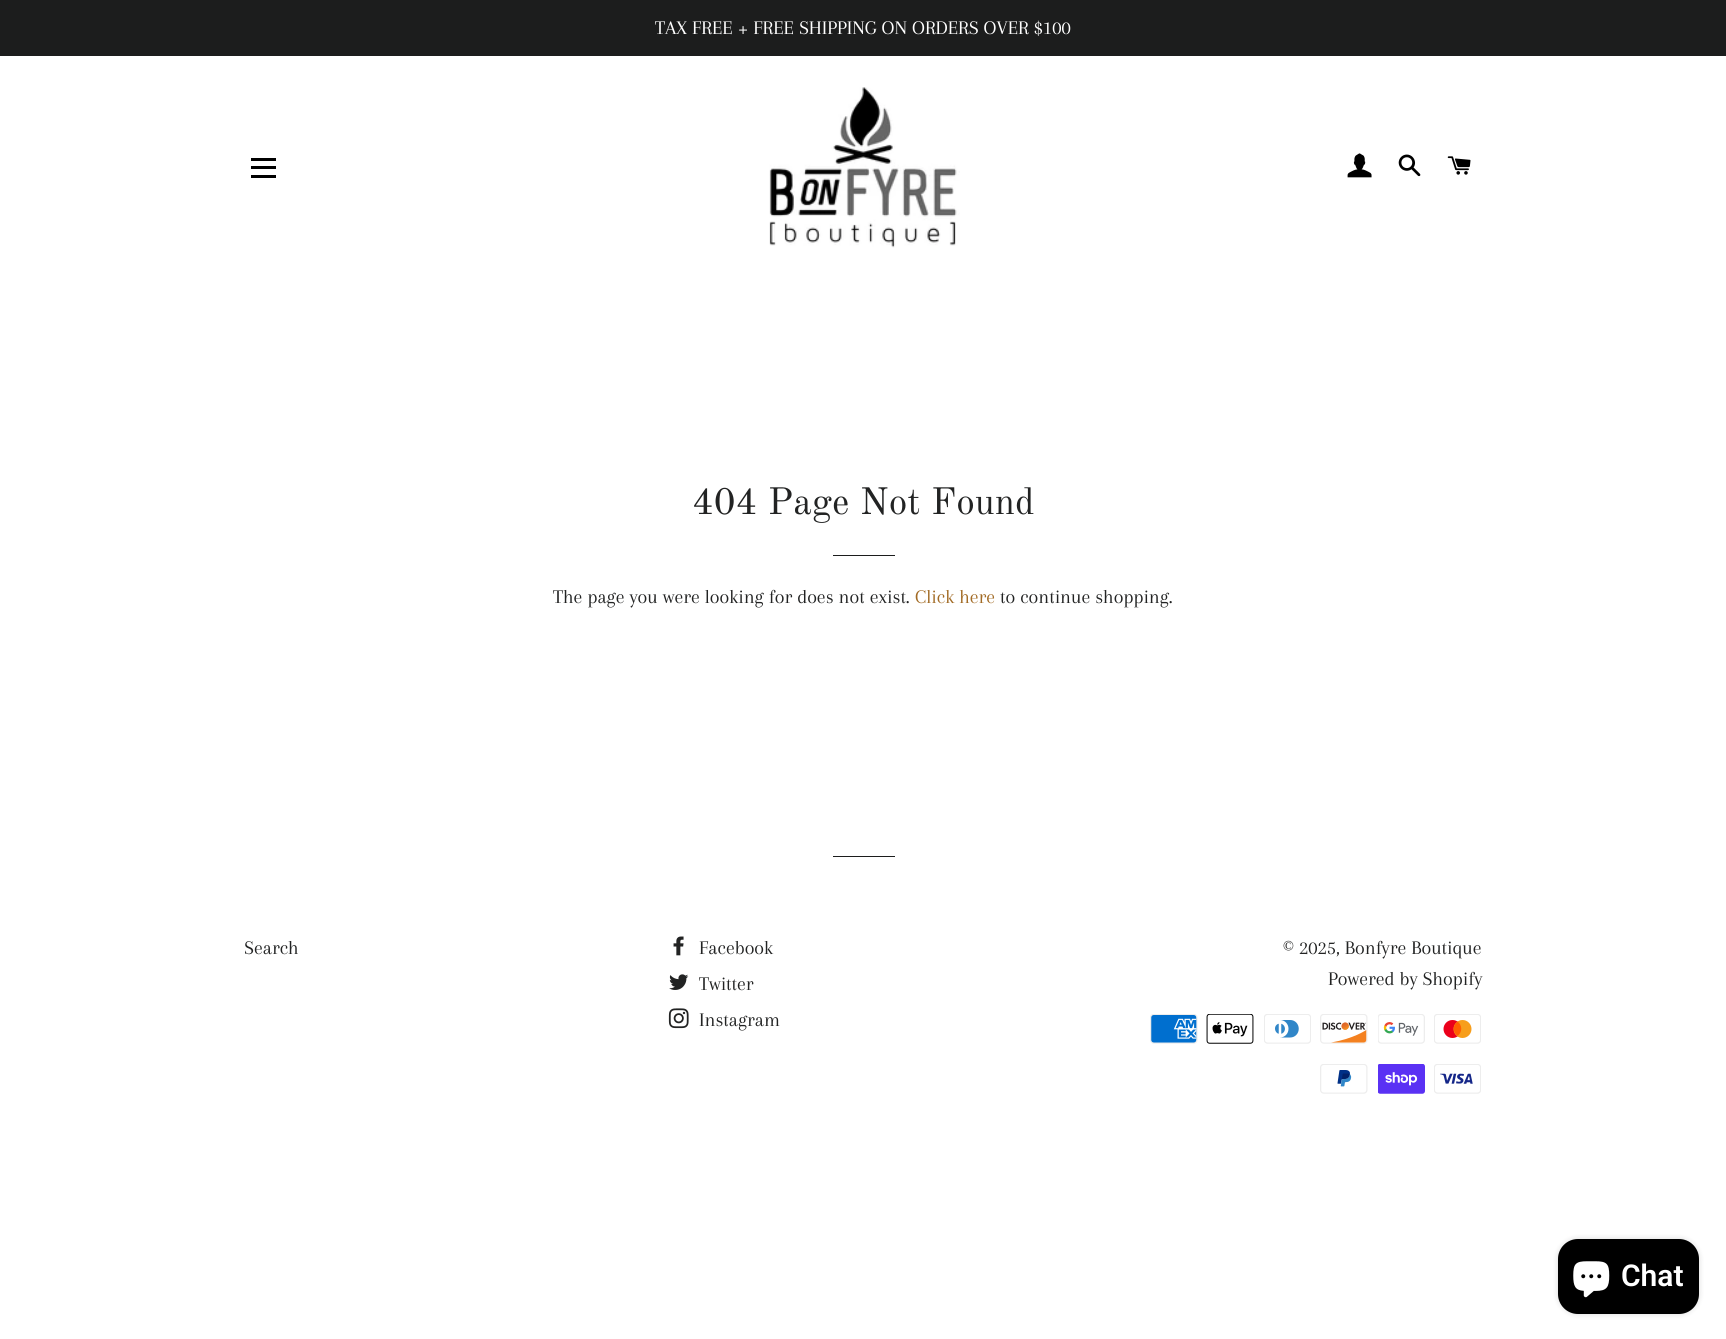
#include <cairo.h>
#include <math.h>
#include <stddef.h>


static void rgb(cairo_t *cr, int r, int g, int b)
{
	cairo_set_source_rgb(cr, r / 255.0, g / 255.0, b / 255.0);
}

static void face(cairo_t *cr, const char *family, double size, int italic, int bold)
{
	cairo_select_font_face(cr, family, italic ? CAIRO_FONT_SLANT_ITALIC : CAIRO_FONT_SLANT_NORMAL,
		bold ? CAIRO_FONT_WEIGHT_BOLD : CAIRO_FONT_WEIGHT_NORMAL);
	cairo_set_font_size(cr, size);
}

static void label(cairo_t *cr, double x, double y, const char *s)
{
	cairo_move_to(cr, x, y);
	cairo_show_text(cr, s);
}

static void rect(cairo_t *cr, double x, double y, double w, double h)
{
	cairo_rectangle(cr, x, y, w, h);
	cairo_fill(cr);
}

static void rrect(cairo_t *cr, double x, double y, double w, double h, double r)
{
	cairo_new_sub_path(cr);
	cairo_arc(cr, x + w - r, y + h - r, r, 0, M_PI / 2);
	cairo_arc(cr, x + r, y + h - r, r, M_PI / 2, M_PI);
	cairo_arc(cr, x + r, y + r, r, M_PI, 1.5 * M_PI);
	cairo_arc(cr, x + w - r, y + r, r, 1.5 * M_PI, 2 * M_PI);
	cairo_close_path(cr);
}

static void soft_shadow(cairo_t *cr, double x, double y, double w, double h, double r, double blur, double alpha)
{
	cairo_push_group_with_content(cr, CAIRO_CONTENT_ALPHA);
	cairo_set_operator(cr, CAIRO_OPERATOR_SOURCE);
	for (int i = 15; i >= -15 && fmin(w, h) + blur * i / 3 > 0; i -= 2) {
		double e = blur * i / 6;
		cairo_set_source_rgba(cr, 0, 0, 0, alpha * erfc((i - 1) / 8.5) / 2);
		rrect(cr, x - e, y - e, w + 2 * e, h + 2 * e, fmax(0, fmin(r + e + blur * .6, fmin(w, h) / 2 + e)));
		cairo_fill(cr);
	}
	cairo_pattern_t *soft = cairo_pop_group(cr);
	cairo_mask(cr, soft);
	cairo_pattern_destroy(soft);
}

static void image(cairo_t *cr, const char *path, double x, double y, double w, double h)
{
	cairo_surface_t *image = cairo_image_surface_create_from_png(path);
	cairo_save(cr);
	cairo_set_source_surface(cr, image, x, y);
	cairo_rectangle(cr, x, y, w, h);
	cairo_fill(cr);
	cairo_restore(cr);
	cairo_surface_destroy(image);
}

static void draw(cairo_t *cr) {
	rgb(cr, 255, 255, 255);
	cairo_paint(cr);
	rgb(cr, 28, 29, 29);
	rect(cr, 0, 0, 1726, 56);
	face(cr, "Arapey", 20, 0, 0);
	rgb(cr, 255, 255, 255);
	label(cr, 655, 34, "TAX FREE + FREE SHIPPING ON ORDERS OVER $100");
	rgb(cr, 0, 0, 0);
	rect(cr, 251, 158, 25, 3);
	rect(cr, 251, 166, 25, 3);
	rect(cr, 251, 175, 25, 3);
	image(cr, "image0.png", 769, 87, 191, 161);
	image(cr, "image1.png", 1347, 153, 25, 25);
	image(cr, "image2.png", 1398, 154, 23, 23);
	image(cr, "image3.png", 1447, 156, 24, 19);
	face(cr, "Old Standard TT", 37.5, 0, 0);
	rgb(cr, 34, 35, 35);
	label(cr, 692, 514, "404 Page Not Found");
	rgb(cr, 28, 29, 29);
	rect(cr, 833, 555, 62, 1);
	face(cr, "Arapey", 20, 0, 0);
	rgb(cr, 34, 35, 35);
	label(cr, 553, 603, "The page you were looking for does not exist.");
	rgb(cr, 162, 107, 37);
	label(cr, 915, 603, "Click here");
	rgb(cr, 34, 35, 35);
	label(cr, 1000, 603, "to continue shopping.");
	rgb(cr, 28, 29, 29);
	rect(cr, 833, 856, 62, 1);
	rgb(cr, 34, 35, 35);
	label(cr, 244, 954, "Search");
	image(cr, "image4.png", 673, 936, 11, 20);
	label(cr, 699, 954, "Facebook");
	image(cr, "image5.png", 669, 974, 20, 16);
	label(cr, 699, 990, "Twitter");
	image(cr, "image6.png", 668, 1008, 21, 21);
	label(cr, 699, 1026, "Instagram");
	label(cr, 1283, 954, "© 2025, Bonfyre Boutique");
	label(cr, 1328, 985, "Powered by Shopify");
	image(cr, "image7.png", 1150, 1014, 48, 30);
	image(cr, "image8.png", 1206, 1014, 48, 30);
	image(cr, "image9.png", 1264, 1014, 47, 30);
	image(cr, "image10.png", 1320, 1014, 48, 30);
	image(cr, "image11.png", 1378, 1014, 47, 30);
	image(cr, "image12.png", 1434, 1014, 47, 30);
	image(cr, "image13.png", 1320, 1064, 48, 30);
	image(cr, "image14.png", 1378, 1064, 47, 30);
	image(cr, "image15.png", 1434, 1064, 47, 30);
	rgb(cr, 0, 0, 0);
	soft_shadow(cr, 1558, 1239, 141, 75, 20, 3, 0.15);
	rgb(cr, 0, 0, 0);
	rrect(cr, 1558, 1239, 141, 75, 20);
	cairo_fill(cr);
	image(cr, "image16.png", 1573, 1261, 37, 37);
	face(cr, "Roboto SemiBold", 30, 0, 0);
	rgb(cr, 255, 255, 255);
	label(cr, 1621, 1286, "Chat");
}

int main(void) {
	cairo_surface_t *surface = cairo_image_surface_create(CAIRO_FORMAT_RGB24, 1726, 1339);
	cairo_t *cr = cairo_create(surface);
	cairo_font_options_t *options = cairo_font_options_create();
	cairo_font_options_set_hint_metrics(options, CAIRO_HINT_METRICS_OFF);
	cairo_font_options_set_hint_style(options, CAIRO_HINT_STYLE_NONE);
	cairo_set_font_options(cr, options);
	cairo_set_miter_limit(cr, 4);
	draw(cr);
	cairo_surface_write_to_png(surface, "render.png");
	cairo_font_options_destroy(options);
	cairo_destroy(cr);
	cairo_surface_destroy(surface);
	return 0;
}
